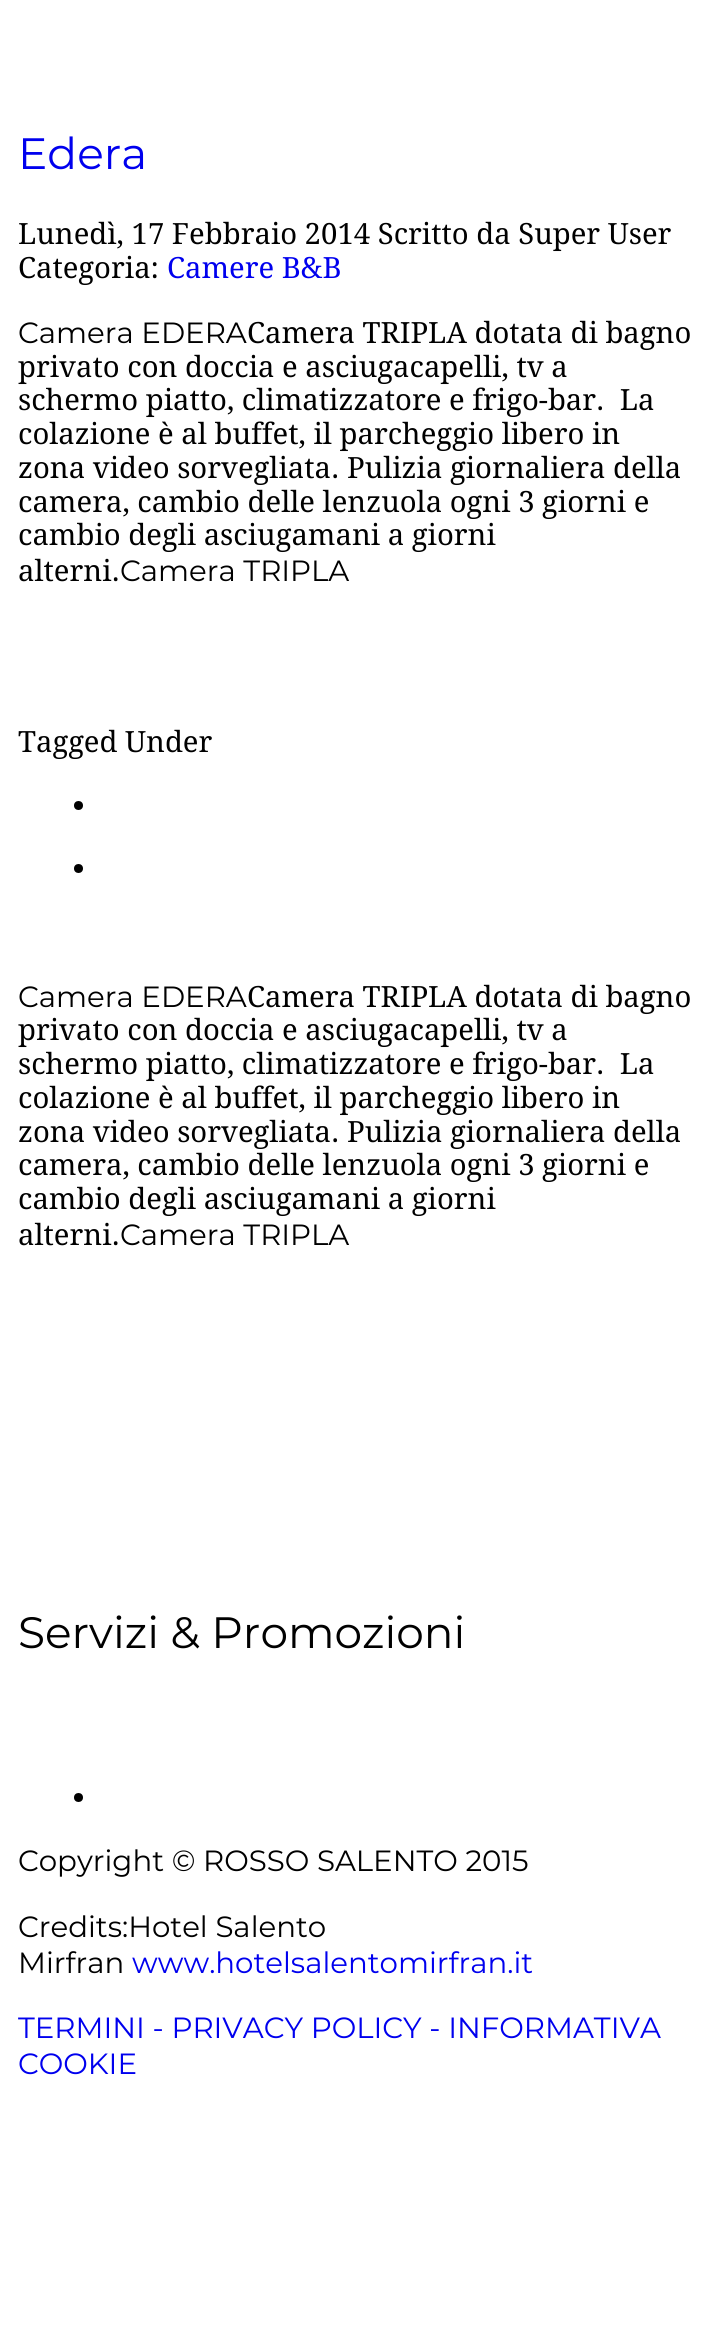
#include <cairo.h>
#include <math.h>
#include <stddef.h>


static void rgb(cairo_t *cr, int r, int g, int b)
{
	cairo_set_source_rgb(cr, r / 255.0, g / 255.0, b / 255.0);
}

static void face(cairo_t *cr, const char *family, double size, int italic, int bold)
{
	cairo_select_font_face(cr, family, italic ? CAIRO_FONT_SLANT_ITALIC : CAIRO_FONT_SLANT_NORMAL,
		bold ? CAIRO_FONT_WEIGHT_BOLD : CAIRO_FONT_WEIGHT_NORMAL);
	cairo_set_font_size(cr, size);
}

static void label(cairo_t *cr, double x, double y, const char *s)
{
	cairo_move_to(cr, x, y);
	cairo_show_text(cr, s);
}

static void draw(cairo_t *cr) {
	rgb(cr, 255, 255, 255);
	cairo_paint(cr);
	face(cr, "Montserrat Thin", 43.9, 0, 0);
	rgb(cr, 0, 0, 238);
	label(cr, 18, 169, "Edera");
	face(cr, "Droid Serif", 29.25, 0, 0);
	rgb(cr, 0, 0, 0);
	label(cr, 18, 244, "Lunedì, 17 Febbraio 2014 Scritto da Super User");
	label(cr, 18, 278, "Categoria:");
	rgb(cr, 0, 0, 238);
	label(cr, 167, 278, "Camere B&B");
	face(cr, "Montserrat Thin", 29.25, 0, 0);
	rgb(cr, 0, 0, 0);
	label(cr, 18, 343, "Camera EDERA");
	face(cr, "Droid Serif", 29.25, 0, 0);
	label(cr, 247, 343, "Camera TRIPLA dotata di bagno");
	label(cr, 18, 377, "privato con doccia e asciugacapelli, tv a");
	label(cr, 18, 410, "schermo piatto, climatizzatore e frigo-bar.  La");
	label(cr, 18, 444, "colazione è al buffet, il parcheggio libero in");
	label(cr, 18, 478, "zona video sorvegliata. Pulizia giornaliera della");
	label(cr, 18, 512, "camera, cambio delle lenzuola ogni 3 giorni e");
	label(cr, 18, 545, "cambio degli asciugamani a giorni");
	label(cr, 18, 581, "alterni.");
	face(cr, "Montserrat Thin", 29.25, 0, 0);
	label(cr, 120, 581, "Camera TRIPLA");
	face(cr, "Droid Serif", 29.25, 0, 0);
	label(cr, 18, 752, "Tagged Under");
	cairo_new_path(cr);
	cairo_arc(cr, 78.5, 805.5, 4.5, 0, 2 * M_PI);
	cairo_fill(cr);
	cairo_arc(cr, 78.5, 868.5, 4.5, 0, 2 * M_PI);
	cairo_fill(cr);
	face(cr, "Montserrat Thin", 29.25, 0, 0);
	label(cr, 18, 1007, "Camera EDERA");
	face(cr, "Droid Serif", 29.25, 0, 0);
	label(cr, 247, 1007, "Camera TRIPLA dotata di bagno");
	label(cr, 18, 1040, "privato con doccia e asciugacapelli, tv a");
	label(cr, 18, 1074, "schermo piatto, climatizzatore e frigo-bar.  La");
	label(cr, 18, 1108, "colazione è al buffet, il parcheggio libero in");
	label(cr, 18, 1142, "zona video sorvegliata. Pulizia giornaliera della");
	label(cr, 18, 1175, "camera, cambio delle lenzuola ogni 3 giorni e");
	label(cr, 18, 1209, "cambio degli asciugamani a giorni");
	label(cr, 18, 1245, "alterni.");
	face(cr, "Montserrat Thin", 29.25, 0, 0);
	label(cr, 120, 1245, "Camera TRIPLA");
	face(cr, "Montserrat Thin", 43.9, 0, 0);
	label(cr, 18, 1648, "Servizi & Promozioni");
	cairo_new_path(cr);
	cairo_arc(cr, 78.5, 1797.5, 4.5, 0, 2 * M_PI);
	cairo_fill(cr);
	face(cr, "Montserrat Thin", 29.25, 0, 0);
	label(cr, 18, 1871, "Copyright © ROSSO SALENTO 2015");
	label(cr, 18, 1937, "Credits:Hotel Salento");
	label(cr, 18, 1973, "Mirfran");
	rgb(cr, 0, 0, 238);
	label(cr, 132, 1973, "www.hotelsalentomirfran.it");
	label(cr, 18, 2038, "TERMINI - PRIVACY POLICY - INFORMATIVA");
	label(cr, 18, 2074, "COOKIE");
}

int main(void) {
	cairo_surface_t *surface = cairo_image_surface_create(CAIRO_FORMAT_RGB24, 710, 2330);
	cairo_t *cr = cairo_create(surface);
	cairo_font_options_t *options = cairo_font_options_create();
	cairo_font_options_set_hint_metrics(options, CAIRO_HINT_METRICS_OFF);
	cairo_font_options_set_hint_style(options, CAIRO_HINT_STYLE_NONE);
	cairo_set_font_options(cr, options);
	cairo_set_miter_limit(cr, 4);
	draw(cr);
	cairo_surface_write_to_png(surface, "render.png");
	cairo_font_options_destroy(options);
	cairo_destroy(cr);
	cairo_surface_destroy(surface);
	return 0;
}
